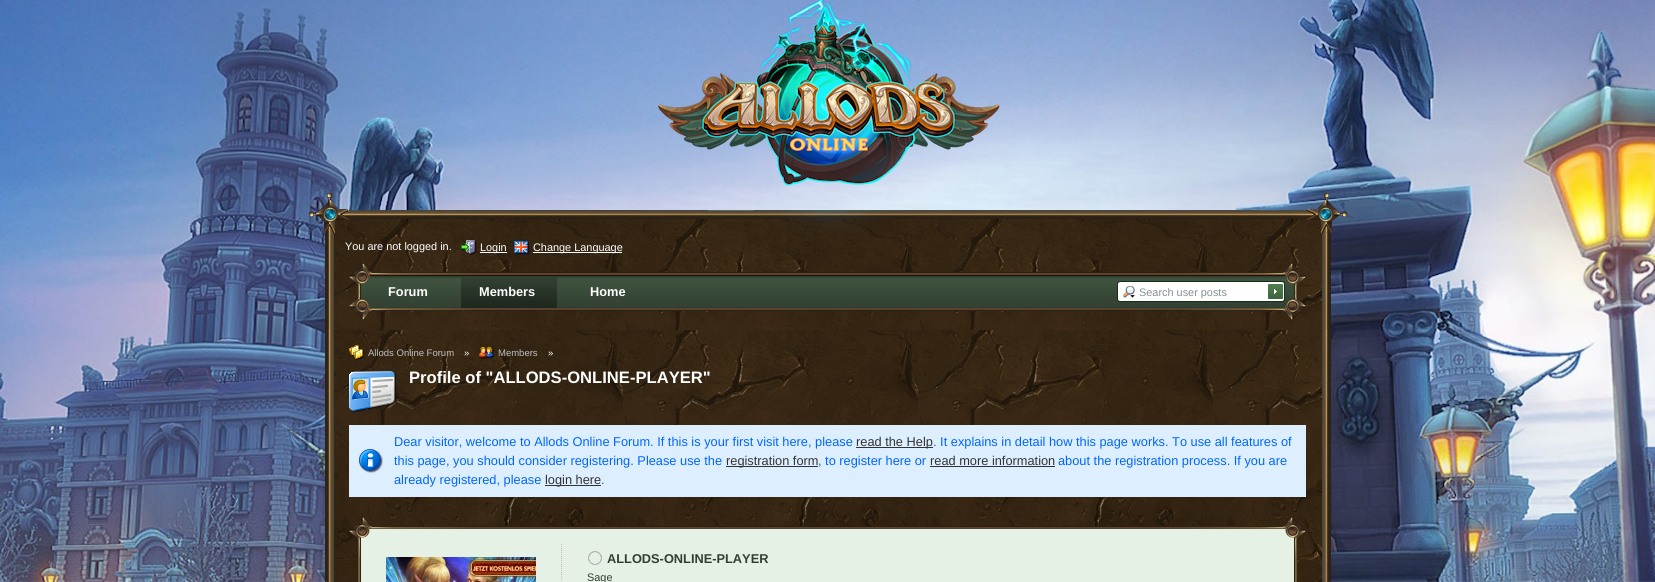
#include <cairo.h>
#include <math.h>
#include <stddef.h>


static void rgb(cairo_t *cr, int r, int g, int b)
{
	cairo_set_source_rgb(cr, r / 255.0, g / 255.0, b / 255.0);
}

static void face(cairo_t *cr, const char *family, double size, int italic, int bold)
{
	cairo_select_font_face(cr, family, italic ? CAIRO_FONT_SLANT_ITALIC : CAIRO_FONT_SLANT_NORMAL,
		bold ? CAIRO_FONT_WEIGHT_BOLD : CAIRO_FONT_WEIGHT_NORMAL);
	cairo_set_font_size(cr, size);
}

static void label(cairo_t *cr, double x, double y, const char *s)
{
	cairo_move_to(cr, x, y);
	cairo_show_text(cr, s);
}

static void rect(cairo_t *cr, double x, double y, double w, double h)
{
	cairo_rectangle(cr, x, y, w, h);
	cairo_fill(cr);
}

static void image(cairo_t *cr, const char *path, double x, double y, double w, double h)
{
	cairo_surface_t *image = cairo_image_surface_create_from_png(path);
	cairo_save(cr);
	cairo_set_source_surface(cr, image, x, y);
	cairo_rectangle(cr, x, y, w, h);
	cairo_fill(cr);
	cairo_restore(cr);
	cairo_surface_destroy(image);
}

static void draw(cairo_t *cr) {
	rgb(cr, 255, 255, 255);
	cairo_paint(cr);
	image(cr, "image0.png", 0, 0, 1655, 582);
	image(cr, "image3.png", 324, 233, 1008, 97);
	face(cr, "Liberation Sans", 10.9, 0, 0);
	rgb(cr, 255, 255, 255);
	label(cr, 345, 250, "You are not logged in.");
	image(cr, "image1.png", 461, 240, 16, 16);
	rect(cr, 480, 252, 27, 1);
	label(cr, 480, 251, "Login");
	image(cr, "image2.png", 514, 241, 16, 14);
	rect(cr, 533, 252, 89, 1);
	label(cr, 533, 251, "Change Language");
	image(cr, "image4.png", 349, 263, 957, 57);
	face(cr, "Liberation Sans", 12.8, 0, 1);
	label(cr, 388, 296, "Forum");
	image(cr, "image5.png", 461, 277, 96, 31);
	label(cr, 479, 296, "Members");
	label(cr, 590, 296, "Home");
	image(cr, "image6.png", 308, 192, 1040, 41);
	image(cr, "image7.png", 658, 0, 342, 186);
	image(cr, "image8.png", 1117, 281, 168, 21);
	face(cr, "Liberation Sans", 10.9, 0, 0);
	rgb(cr, 130, 146, 146);
	label(cr, 1139, 296, "Search user posts");
	image(cr, "image9.png", 1268, 284, 15, 15);
	image(cr, "image10.png", 324, 330, 1008, 252);
	image(cr, "image11.png", 349, 345, 16, 16);
	face(cr, "Liberation Sans", 9.5, 0, 0);
	rgb(cr, 192, 192, 192);
	label(cr, 368, 356, "Allods Online Forum");
	rgb(cr, 255, 255, 255);
	label(cr, 464, 356, "»");
	image(cr, "image12.png", 479, 346, 16, 13);
	rgb(cr, 192, 192, 192);
	label(cr, 498, 356, "Members");
	rgb(cr, 255, 255, 255);
	label(cr, 548, 356, "»");
	image(cr, "image13.png", 349, 371, 48, 42);
	face(cr, "Liberation Sans", 16.6, 0, 1);
	label(cr, 409, 383, "Profile of \"ALLODS-ONLINE-PLAYER\"");
	rgb(cr, 221, 238, 255);
	rect(cr, 349, 425, 957, 72);
	image(cr, "image14.png", 359, 449, 24, 24);
	face(cr, "Liberation Sans", 12.8, 0, 0);
	rgb(cr, 0, 102, 255);
	label(cr, 394, 446, "Dear visitor, welcome to Allods Online Forum. If this is your first visit here, please");
	rgb(cr, 51, 51, 51);
	rect(cr, 856, 447, 77, 1);
	label(cr, 856, 446, "read the Help");
	rgb(cr, 0, 102, 255);
	label(cr, 933, 446, ". It explains in detail how this page works. To use all features of");
	label(cr, 394, 465, "this page, you should consider registering. Please use the");
	rgb(cr, 51, 51, 51);
	rect(cr, 726, 466, 92, 1);
	label(cr, 726, 465, "registration form");
	rgb(cr, 0, 102, 255);
	label(cr, 818, 465, ", to register here or");
	rgb(cr, 51, 51, 51);
	label(cr, 930, 465, "read more information");
	rect(cr, 930, 466, 125, 1);
	rgb(cr, 0, 102, 255);
	label(cr, 1058, 465, "about the registration process. If you are");
	label(cr, 394, 484, "already registered, please");
	rgb(cr, 51, 51, 51);
	rect(cr, 545, 485, 56, 1);
	label(cr, 545, 484, "login here");
	rgb(cr, 0, 102, 255);
	label(cr, 601, 484, ".");
	image(cr, "image15.png", 349, 517, 957, 42);
	image(cr, "image16.png", 358, 559, 939, 23);
	image(cr, "image17.png", 386, 557, 150, 25);
	cairo_new_path(cr);
	cairo_move_to(cr, 561.5, 544);
	cairo_line_to(cr, 561.5, 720);
	rgb(cr, 192, 192, 192);
	cairo_set_line_width(cr, 1);
	cairo_set_dash(cr, (double[]){1, 1}, 2, 0);
	cairo_stroke(cr);
	image(cr, "image18.png", 588, 551, 14, 14);
	face(cr, "Liberation Sans", 12.8, 0, 1);
	rgb(cr, 50, 64, 50);
	label(cr, 607, 563, "ALLODS-ONLINE-PLAYER");
	face(cr, "Liberation Sans", 10.9, 0, 0);
	label(cr, 587, 581, "Sage");
}

int main(void) {
	cairo_surface_t *surface = cairo_image_surface_create(CAIRO_FORMAT_RGB24, 1655, 582);
	cairo_t *cr = cairo_create(surface);
	cairo_font_options_t *options = cairo_font_options_create();
	cairo_font_options_set_hint_metrics(options, CAIRO_HINT_METRICS_OFF);
	cairo_font_options_set_hint_style(options, CAIRO_HINT_STYLE_NONE);
	cairo_set_font_options(cr, options);
	cairo_set_miter_limit(cr, 4);
	draw(cr);
	cairo_surface_write_to_png(surface, "render.png");
	cairo_font_options_destroy(options);
	cairo_destroy(cr);
	cairo_surface_destroy(surface);
	return 0;
}
